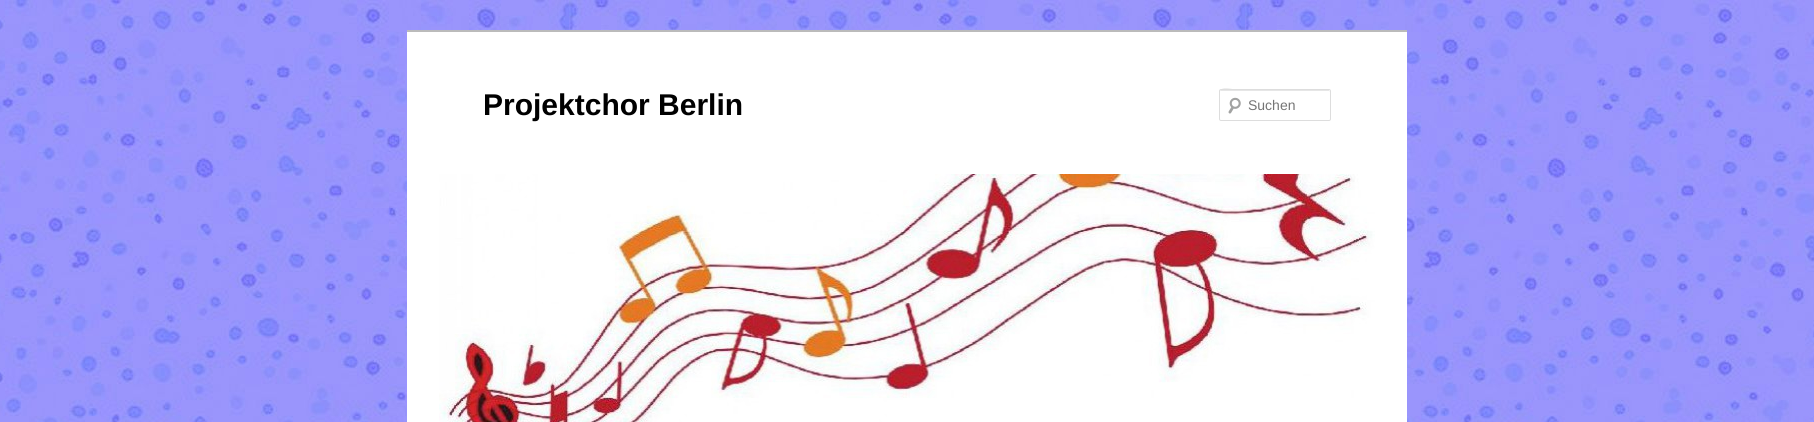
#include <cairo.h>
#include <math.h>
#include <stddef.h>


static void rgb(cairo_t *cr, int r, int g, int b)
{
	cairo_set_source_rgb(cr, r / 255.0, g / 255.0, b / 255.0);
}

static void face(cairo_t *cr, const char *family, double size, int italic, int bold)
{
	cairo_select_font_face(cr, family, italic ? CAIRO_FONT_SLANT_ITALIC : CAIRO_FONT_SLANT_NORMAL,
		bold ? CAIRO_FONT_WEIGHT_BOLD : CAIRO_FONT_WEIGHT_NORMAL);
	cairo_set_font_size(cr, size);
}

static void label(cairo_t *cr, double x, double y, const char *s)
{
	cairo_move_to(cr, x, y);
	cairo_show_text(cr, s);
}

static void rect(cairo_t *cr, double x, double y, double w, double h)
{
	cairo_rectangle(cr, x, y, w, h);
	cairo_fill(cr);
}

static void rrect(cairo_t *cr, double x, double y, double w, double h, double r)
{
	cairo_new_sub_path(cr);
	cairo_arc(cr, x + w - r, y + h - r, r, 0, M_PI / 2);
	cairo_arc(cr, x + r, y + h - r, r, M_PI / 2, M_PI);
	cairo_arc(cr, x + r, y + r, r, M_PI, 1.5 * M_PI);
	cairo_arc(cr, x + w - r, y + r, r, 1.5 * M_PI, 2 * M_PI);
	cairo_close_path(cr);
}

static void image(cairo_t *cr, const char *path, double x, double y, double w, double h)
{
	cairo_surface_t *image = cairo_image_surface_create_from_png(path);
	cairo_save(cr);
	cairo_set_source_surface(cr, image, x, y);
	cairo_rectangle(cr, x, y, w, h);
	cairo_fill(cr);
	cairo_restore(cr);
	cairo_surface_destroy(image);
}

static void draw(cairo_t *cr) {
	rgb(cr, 255, 255, 255);
	cairo_paint(cr);
	image(cr, "image0.png", 0, 0, 1814, 422);
	rgb(cr, 255, 255, 255);
	rect(cr, 407, 32, 1000, 390);
	rgb(cr, 187, 187, 187);
	rect(cr, 407, 30, 1000, 2);
	face(cr, "Liberation Sans", 30, 0, 1);
	rgb(cr, 0, 0, 0);
	label(cr, 483, 115, "Projektchor Berlin");
	image(cr, "image1.png", 1228, 97, 13, 17);
	rgb(cr, 230, 230, 230);
	cairo_new_path(cr);
	cairo_move_to(cr, 1221, 91);
	cairo_line_to(cr, 1330, 91);
	cairo_line_to(cr, 1330, 92);
	cairo_line_to(cr, 1329, 90);
	cairo_line_to(cr, 1239, 90);
	cairo_curve_to(cr, 1235, 90, 1220, 85, 1220, 92);
	cairo_curve_to(cr, 1220, 91, 1220, 91, 1221, 91);
	cairo_close_path(cr);
	cairo_fill(cr);
	rrect(cr, 1219.5, 89.5, 111, 31, 1.5);
	rgb(cr, 221, 221, 221);
	cairo_set_line_width(cr, 1);
	cairo_stroke(cr);
	face(cr, "Liberation Sans", 14, 0, 0);
	rgb(cr, 117, 117, 117);
	label(cr, 1248, 110, "Suchen");
	image(cr, "image2.png", 439, 174, 936, 248);
}

int main(void) {
	cairo_surface_t *surface = cairo_image_surface_create(CAIRO_FORMAT_RGB24, 1814, 422);
	cairo_t *cr = cairo_create(surface);
	cairo_font_options_t *options = cairo_font_options_create();
	cairo_font_options_set_hint_metrics(options, CAIRO_HINT_METRICS_OFF);
	cairo_font_options_set_hint_style(options, CAIRO_HINT_STYLE_NONE);
	cairo_set_font_options(cr, options);
	cairo_set_miter_limit(cr, 4);
	draw(cr);
	cairo_surface_write_to_png(surface, "render.png");
	cairo_font_options_destroy(options);
	cairo_destroy(cr);
	cairo_surface_destroy(surface);
	return 0;
}
